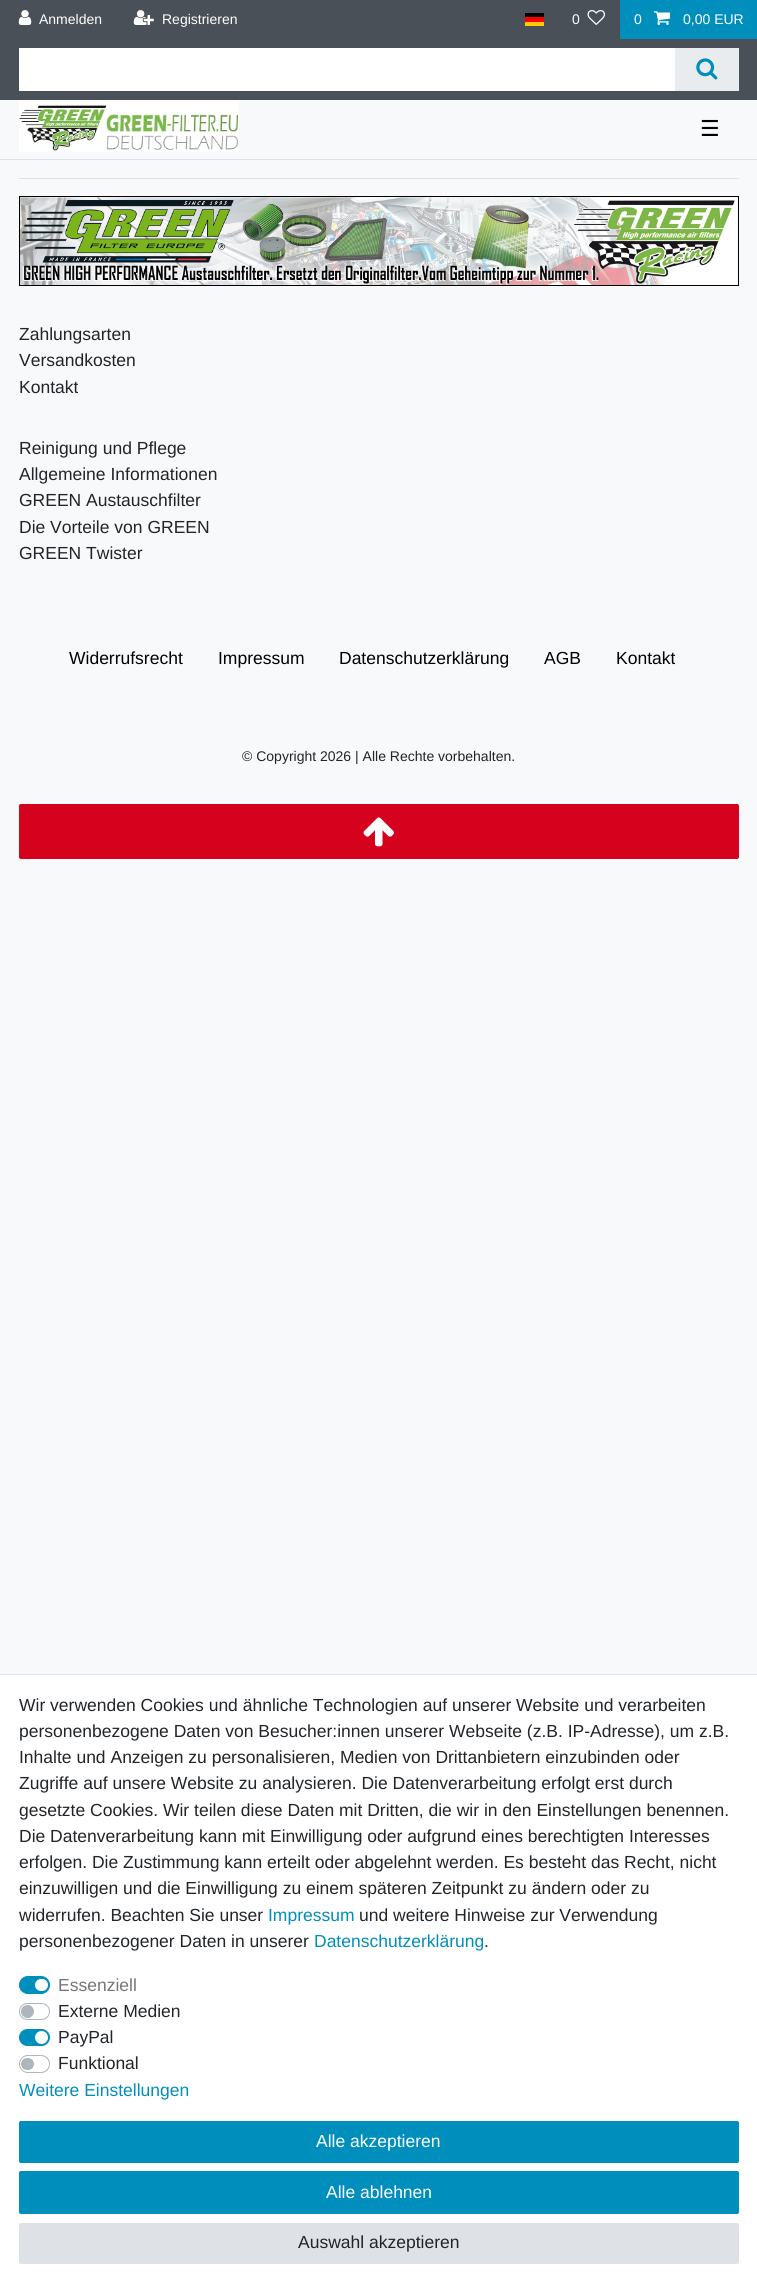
#include <cairo.h>
#include <math.h>
#include <stddef.h>


static void rgb(cairo_t *cr, int r, int g, int b)
{
	cairo_set_source_rgb(cr, r / 255.0, g / 255.0, b / 255.0);
}

static void face(cairo_t *cr, const char *family, double size, int italic, int bold)
{
	cairo_select_font_face(cr, family, italic ? CAIRO_FONT_SLANT_ITALIC : CAIRO_FONT_SLANT_NORMAL,
		bold ? CAIRO_FONT_WEIGHT_BOLD : CAIRO_FONT_WEIGHT_NORMAL);
	cairo_set_font_size(cr, size);
}

static void label(cairo_t *cr, double x, double y, const char *s)
{
	cairo_move_to(cr, x, y);
	cairo_show_text(cr, s);
}

static void rect(cairo_t *cr, double x, double y, double w, double h)
{
	cairo_rectangle(cr, x, y, w, h);
	cairo_fill(cr);
}

static void rrect(cairo_t *cr, double x, double y, double w, double h, double r)
{
	cairo_new_sub_path(cr);
	cairo_arc(cr, x + w - r, y + h - r, r, 0, M_PI / 2);
	cairo_arc(cr, x + r, y + h - r, r, M_PI / 2, M_PI);
	cairo_arc(cr, x + r, y + r, r, M_PI, 1.5 * M_PI);
	cairo_arc(cr, x + w - r, y + r, r, 1.5 * M_PI, 2 * M_PI);
	cairo_close_path(cr);
}

static void image(cairo_t *cr, const char *path, double x, double y, double w, double h)
{
	cairo_surface_t *image = cairo_image_surface_create_from_png(path);
	cairo_save(cr);
	cairo_set_source_surface(cr, image, x, y);
	cairo_rectangle(cr, x, y, w, h);
	cairo_fill(cr);
	cairo_restore(cr);
	cairo_surface_destroy(image);
}

static void draw(cairo_t *cr) {
	rgb(cr, 248, 249, 250);
	cairo_paint(cr);
	rgb(cr, 73, 80, 87);
	rect(cr, 0, 0, 757, 100);
	image(cr, "image0.png", 18, 10, 14, 15);
	face(cr, "Liberation Sans", 14, 0, 0);
	rgb(cr, 255, 255, 255);
	label(cr, 39, 24, "Anmelden");
	image(cr, "image1.png", 133, 10, 21, 15);
	label(cr, 162, 24, "Registrieren");
	rgb(cr, 255, 204, 0);
	rect(cr, 525, 22, 19, 4);
	rgb(cr, 0, 0, 0);
	rect(cr, 525, 13, 19, 4);
	rgb(cr, 255, 0, 0);
	rect(cr, 525, 17, 19, 5);
	rgb(cr, 255, 255, 255);
	label(cr, 572, 24, "0");
	image(cr, "image2.png", 587, 10, 18, 15);
	rgb(cr, 0, 142, 189);
	rect(cr, 620, 0, 137, 39);
	rgb(cr, 255, 255, 255);
	label(cr, 634, 24, "0");
	image(cr, "image3.png", 653, 11, 17, 14);
	label(cr, 683, 24, "0,00 EUR");
	rect(cr, 19, 48, 656, 43);
	rgb(cr, 233, 236, 239);
	rect(cr, 675, 48, 64, 43);
	image(cr, "image4.png", 696, 58, 22, 22);
	rgb(cr, 222, 226, 230);
	rect(cr, 0, 159, 757, 1);
	image(cr, "image5.png", 19, 100, 220, 52);
	face(cr, "DejaVu Sans", 22, 0, 0);
	rgb(cr, 0, 0, 0);
	label(cr, 700, 136, "☰");
	rgb(cr, 222, 226, 230);
	rect(cr, 19, 178, 720, 1);
	cairo_rectangle(cr, 19.5, 196.5, 719, 89);
	rgb(cr, 0, 0, 0);
	cairo_set_line_width(cr, 1);
	cairo_stroke(cr);
	image(cr, "image6.png", 20, 197, 717, 88);
	face(cr, "Liberation Sans", 17.5, 0, 0);
	rgb(cr, 33, 37, 41);
	label(cr, 19, 340, "Zahlungsarten");
	label(cr, 19, 366, "Versandkosten");
	label(cr, 19, 393, "Kontakt");
	label(cr, 19, 454, "Reinigung und Pflege");
	label(cr, 19, 480, "Allgemeine Informationen");
	label(cr, 19, 506, "GREEN Austauschfilter");
	label(cr, 19, 533, "Die Vorteile von GREEN");
	label(cr, 19, 559, "GREEN Twister");
	rgb(cr, 0, 0, 0);
	label(cr, 69, 664, "Widerrufsrecht");
	label(cr, 218, 664, "Impressum");
	label(cr, 339, 664, "Datenschutzerklärung");
	label(cr, 544, 664, "AGB");
	label(cr, 616, 664, "Kontakt");
	face(cr, "Liberation Sans", 14, 0, 0);
	rgb(cr, 33, 37, 41);
	label(cr, 242, 761, "© Copyright 2026 | Alle Rechte vorbehalten.");
	rgb(cr, 255, 255, 255);
	rect(cr, 0, 1675, 757, 615);
	rgb(cr, 222, 226, 230);
	rect(cr, 0, 1674, 757, 1);
	face(cr, "Liberation Sans", 17.5, 0, 0);
	rgb(cr, 33, 37, 41);
	label(cr, 19, 1711, "Wir verwenden Cookies und ähnliche Technologien auf unserer Website und verarbeiten");
	label(cr, 19, 1737, "personenbezogene Daten von Besucher:innen unserer Webseite (z.B. IP-Adresse), um z.B.");
	label(cr, 19, 1763, "Inhalte und Anzeigen zu personalisieren, Medien von Drittanbietern einzubinden oder");
	label(cr, 19, 1789, "Zugriffe auf unsere Website zu analysieren. Die Datenverarbeitung erfolgt erst durch");
	label(cr, 19, 1816, "gesetzte Cookies. Wir teilen diese Daten mit Dritten, die wir in den Einstellungen benennen.");
	label(cr, 19, 1842, "Die Datenverarbeitung kann mit Einwilligung oder aufgrund eines berechtigten Interesses");
	label(cr, 19, 1868, "erfolgen. Die Zustimmung kann erteilt oder abgelehnt werden. Es besteht das Recht, nicht");
	label(cr, 19, 1894, "einzuwilligen und die Einwilligung zu einem späteren Zeitpunkt zu ändern oder zu");
	label(cr, 19, 1921, "widerrufen. Beachten Sie unser");
	rgb(cr, 0, 142, 189);
	label(cr, 268, 1921, "Impressum");
	rgb(cr, 33, 37, 41);
	label(cr, 359, 1921, "und weitere Hinweise zur Verwendung");
	label(cr, 19, 1947, "personenbezogener Daten in unserer");
	rgb(cr, 0, 142, 189);
	label(cr, 314, 1947, "Datenschutzerklärung");
	rgb(cr, 33, 37, 41);
	label(cr, 484, 1947, ".");
	rgb(cr, 0, 142, 189);
	rrect(cr, 19.5, 1976.5, 30, 17, 8.5);
	cairo_fill_preserve(cr);
	cairo_stroke(cr);
	rgb(cr, 118, 118, 118);
	label(cr, 58, 1991, "Essenziell");
	rgb(cr, 255, 255, 255);
	rrect(cr, 35, 1979, 13, 12, 6);
	cairo_fill(cr);
	rrect(cr, 19.5, 2003.5, 30, 16, 8);
	rgb(cr, 173, 181, 189);
	cairo_stroke(cr);
	rgb(cr, 33, 37, 41);
	label(cr, 58, 2017, "Externe Medien");
	rgb(cr, 173, 181, 189);
	cairo_new_path(cr);
	cairo_arc(cr, 27.5, 2011.5, 6.5, 0, 2 * M_PI);
	cairo_fill(cr);
	rgb(cr, 0, 142, 189);
	rrect(cr, 19.5, 2029.5, 30, 16, 8);
	cairo_fill_preserve(cr);
	cairo_stroke(cr);
	rgb(cr, 33, 37, 41);
	label(cr, 58, 2043, "PayPal");
	rgb(cr, 255, 255, 255);
	cairo_new_path(cr);
	cairo_arc(cr, 41.5, 2037.5, 6.5, 0, 2 * M_PI);
	cairo_fill(cr);
	rrect(cr, 19.5, 2055.5, 30, 17, 8.5);
	rgb(cr, 173, 181, 189);
	cairo_stroke(cr);
	rgb(cr, 33, 37, 41);
	label(cr, 58, 2069, "Funktional");
	rgb(cr, 173, 181, 189);
	rrect(cr, 21, 2058, 13, 12, 6);
	cairo_fill(cr);
	rgb(cr, 0, 142, 189);
	label(cr, 19, 2096, "Weitere Einstellungen");
	rrect(cr, 19.5, 2121.5, 719, 41, 1.5);
	cairo_fill_preserve(cr);
	cairo_stroke(cr);
	rgb(cr, 255, 255, 255);
	label(cr, 316, 2147, "Alle akzeptieren");
	rgb(cr, 0, 142, 189);
	rrect(cr, 19.5, 2171.5, 719, 42, 1.5);
	cairo_fill_preserve(cr);
	cairo_stroke(cr);
	rgb(cr, 255, 255, 255);
	label(cr, 326, 2198, "Alle ablehnen");
	rgb(cr, 222, 226, 230);
	rrect(cr, 19.5, 2223.5, 719, 40, 1.5);
	cairo_fill_preserve(cr);
	cairo_stroke(cr);
	rgb(cr, 33, 37, 41);
	label(cr, 298, 2248, "Auswahl akzeptieren");
	rgb(cr, 212, 2, 29);
	rrect(cr, 19.5, 804.5, 719, 54, 1.5);
	cairo_fill_preserve(cr);
	cairo_stroke(cr);
	image(cr, "image7.png", 363, 817, 31, 30);
}

int main(void) {
	cairo_surface_t *surface = cairo_image_surface_create(CAIRO_FORMAT_RGB24, 757, 2290);
	cairo_t *cr = cairo_create(surface);
	cairo_font_options_t *options = cairo_font_options_create();
	cairo_font_options_set_hint_metrics(options, CAIRO_HINT_METRICS_OFF);
	cairo_font_options_set_hint_style(options, CAIRO_HINT_STYLE_NONE);
	cairo_set_font_options(cr, options);
	cairo_set_miter_limit(cr, 4);
	draw(cr);
	cairo_surface_write_to_png(surface, "render.png");
	cairo_font_options_destroy(options);
	cairo_destroy(cr);
	cairo_surface_destroy(surface);
	return 0;
}
